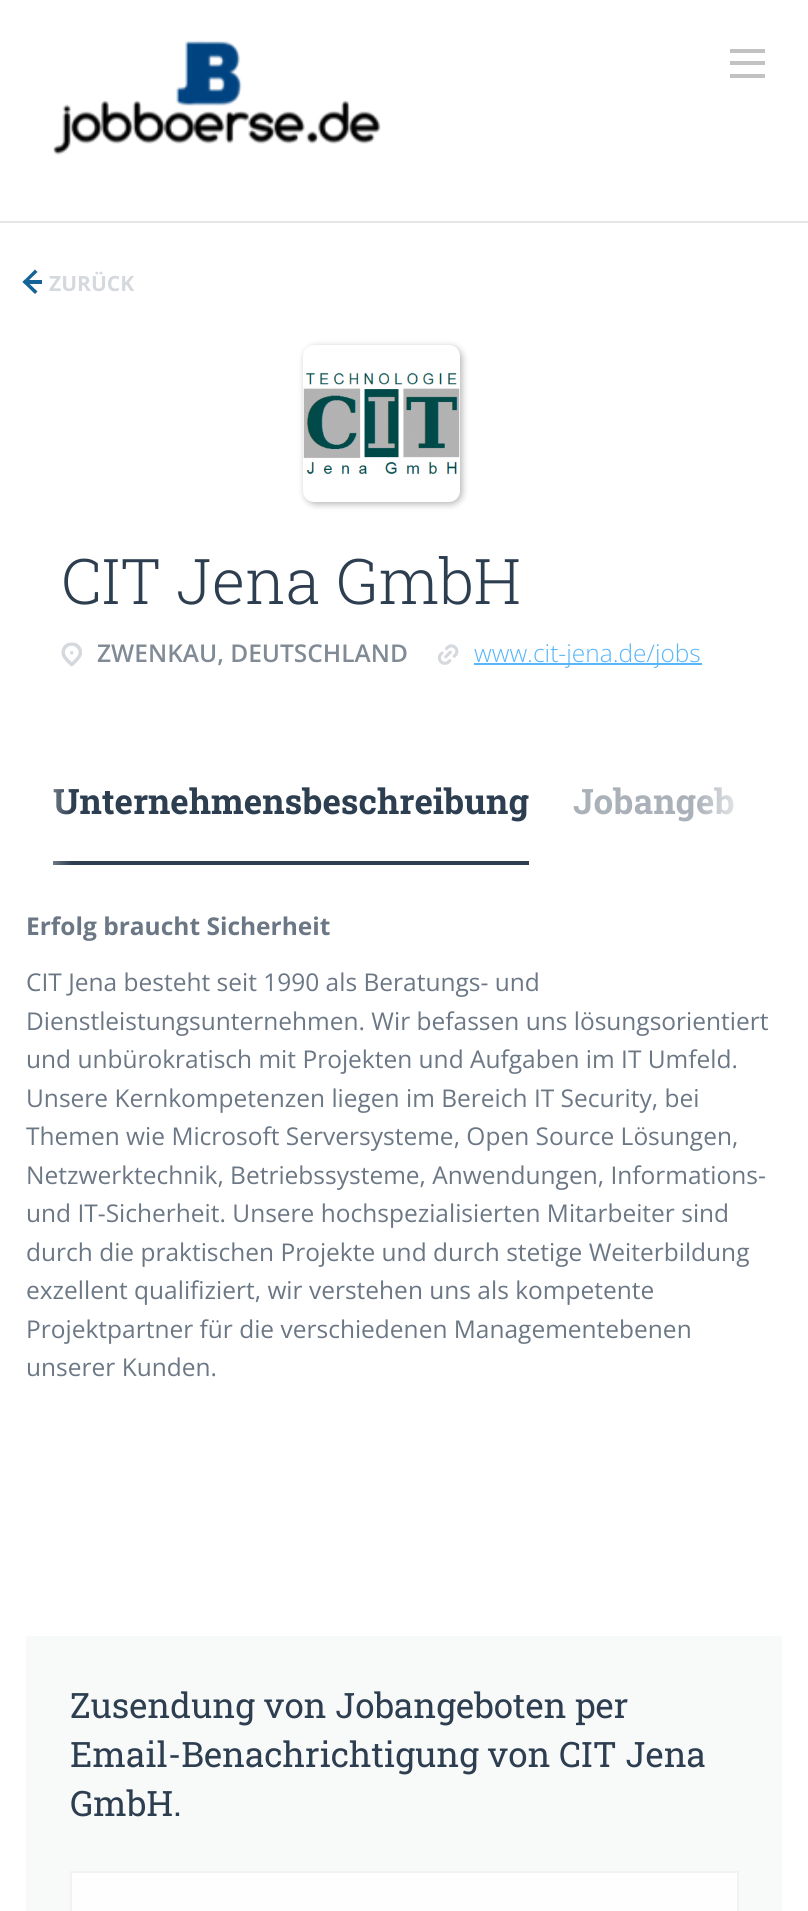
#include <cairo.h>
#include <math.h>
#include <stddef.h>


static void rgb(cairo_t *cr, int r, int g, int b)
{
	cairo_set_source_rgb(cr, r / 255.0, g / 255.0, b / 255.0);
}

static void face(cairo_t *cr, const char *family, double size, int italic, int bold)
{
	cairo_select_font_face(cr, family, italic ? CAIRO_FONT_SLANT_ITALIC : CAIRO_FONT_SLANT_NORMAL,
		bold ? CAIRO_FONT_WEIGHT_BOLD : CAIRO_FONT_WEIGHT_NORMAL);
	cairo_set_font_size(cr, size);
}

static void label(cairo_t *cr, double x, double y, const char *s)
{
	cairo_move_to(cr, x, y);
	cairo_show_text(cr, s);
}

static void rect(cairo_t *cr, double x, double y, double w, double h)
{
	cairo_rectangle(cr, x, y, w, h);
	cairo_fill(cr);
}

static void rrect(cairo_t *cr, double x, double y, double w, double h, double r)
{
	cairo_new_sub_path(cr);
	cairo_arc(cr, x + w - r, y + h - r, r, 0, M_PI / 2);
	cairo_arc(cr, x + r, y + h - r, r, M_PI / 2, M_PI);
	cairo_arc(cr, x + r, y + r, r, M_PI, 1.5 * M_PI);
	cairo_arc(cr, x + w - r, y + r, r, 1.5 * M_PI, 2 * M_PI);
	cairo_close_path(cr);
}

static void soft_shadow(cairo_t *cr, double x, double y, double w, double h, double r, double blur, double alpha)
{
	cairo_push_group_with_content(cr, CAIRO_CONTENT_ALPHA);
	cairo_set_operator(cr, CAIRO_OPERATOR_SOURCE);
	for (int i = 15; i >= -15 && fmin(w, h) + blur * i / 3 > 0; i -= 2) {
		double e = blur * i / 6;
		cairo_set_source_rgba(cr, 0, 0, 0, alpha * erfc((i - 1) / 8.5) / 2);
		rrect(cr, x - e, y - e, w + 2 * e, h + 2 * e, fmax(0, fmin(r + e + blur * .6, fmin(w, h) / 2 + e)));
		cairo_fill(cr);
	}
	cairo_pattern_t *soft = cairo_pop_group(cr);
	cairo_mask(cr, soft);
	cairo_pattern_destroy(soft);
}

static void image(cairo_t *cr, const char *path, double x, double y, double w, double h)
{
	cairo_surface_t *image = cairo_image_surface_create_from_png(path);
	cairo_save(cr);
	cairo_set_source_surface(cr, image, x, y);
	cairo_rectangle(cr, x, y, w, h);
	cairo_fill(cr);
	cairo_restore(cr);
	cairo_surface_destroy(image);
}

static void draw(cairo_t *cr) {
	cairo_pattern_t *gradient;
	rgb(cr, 255, 255, 255);
	cairo_paint(cr);
	rgb(cr, 228, 230, 232);
	rect(cr, 0, 221, 808, 2);
	image(cr, "image0.png", 53, 40, 328, 115);
	rgb(cr, 194, 194, 194);
	rect(cr, 730, 61, 35, 4);
	rect(cr, 730, 49, 35, 4);
	rect(cr, 730, 74, 35, 4);
	rgb(cr, 22, 100, 151);
	cairo_new_path(cr);
	cairo_move_to(cr, 25, 279.5);
	cairo_line_to(cr, 37.5, 291.5);
	cairo_line_to(cr, 35, 294);
	cairo_line_to(cr, 22.5, 282);
	cairo_close_path(cr);
	cairo_fill(cr);
	cairo_new_path(cr);
	cairo_move_to(cr, 35, 269.5);
	cairo_line_to(cr, 37.5, 272);
	cairo_line_to(cr, 25, 284);
	cairo_line_to(cr, 22.5, 282);
	cairo_close_path(cr);
	cairo_fill(cr);
	face(cr, "Open Sans", 21, 0, 1);
	rgb(cr, 213, 216, 220);
	label(cr, 49, 291, "ZURÜCK");
	rgb(cr, 22, 100, 151);
	rect(cr, 26, 280, 16, 4);
	rgb(cr, 0, 0, 0);
	soft_shadow(cr, 305, 347, 157, 157, 11, 3.5, 0.3);
	rgb(cr, 255, 255, 255);
	rrect(cr, 303, 345, 157, 157, 11);
	cairo_fill(cr);
	image(cr, "image1.png", 303, 372, 157, 103);
	face(cr, "Roboto Slab Light", 63, 0, 0);
	rgb(cr, 45, 62, 80);
	label(cr, 61, 604, "CIT Jena GmbH");
	image(cr, "image2.png", 61, 642, 21, 25);
	face(cr, "Open Sans SemiBold", 24.5, 0, 0);
	rgb(cr, 129, 139, 150);
	label(cr, 97, 662, "ZWENKAU, DEUTSCHLAND");
	image(cr, "image3.png", 437, 644, 22, 21);
	rgb(cr, 87, 181, 249);
	rect(cr, 474, 663, 228, 2);
	face(cr, "Open Sans Light", 24.5, 0, 0);
	label(cr, 474, 662, "www.cit-jena.de/jobs");
	rgb(cr, 45, 62, 80);
	rect(cr, 53, 861, 476, 4);
	face(cr, "Roboto Slab", 35, 0, 1);
	label(cr, 53, 814, "Unternehmensbeschreibung");
	rgb(cr, 171, 177, 185);
	label(cr, 573, 814, "Jobangeb");
	gradient = cairo_pattern_create_linear(9, 828, 114, 828);
	cairo_pattern_add_color_stop_rgba(gradient, 0, 1, 1, 1, 1);
	cairo_pattern_add_color_stop_rgba(gradient, 0.6, 1, 1, 1, 0);
	cairo_pattern_add_color_stop_rgba(gradient, 1, 1, 1, 1, 0);
	cairo_set_source(cr, gradient);
	cairo_pattern_destroy(gradient);
	rect(cr, 53, 789, 18, 76);
	gradient = cairo_pattern_create_linear(695, 828, 800, 828);
	cairo_pattern_add_color_stop_rgba(gradient, 0, 1, 1, 1, 0);
	cairo_pattern_add_color_stop_rgba(gradient, 0.6, 1, 1, 1, 1);
	cairo_pattern_add_color_stop_rgba(gradient, 1, 1, 1, 1, 1);
	cairo_set_source(cr, gradient);
	cairo_pattern_destroy(gradient);
	rect(cr, 698, 787, 36, 28);
	face(cr, "Open Sans", 24.5, 0, 1);
	rgb(cr, 107, 119, 133);
	label(cr, 26, 935, "Erfolg braucht Sicherheit");
	face(cr, "Open Sans", 24.5, 0, 0);
	label(cr, 26, 991, "CIT Jena besteht seit 1990 als Beratungs- und");
	label(cr, 26, 1030, "Dienstleistungsunternehmen. Wir befassen uns lösungsorientiert");
	label(cr, 26, 1068, "und unbürokratisch mit Projekten und Aufgaben im IT Umfeld.");
	label(cr, 26, 1107, "Unsere Kernkompetenzen liegen im Bereich IT Security, bei");
	label(cr, 26, 1145, "Themen wie Microsoft Serversysteme, Open Source Lösungen,");
	label(cr, 26, 1184, "Netzwerktechnik, Betriebssysteme, Anwendungen, Informations-");
	label(cr, 26, 1222, "und IT-Sicherheit. Unsere hochspezialisierten Mitarbeiter sind");
	label(cr, 26, 1261, "durch die praktischen Projekte und durch stetige Weiterbildung");
	label(cr, 26, 1299, "exzellent qualifiziert, wir verstehen uns als kompetente");
	label(cr, 26, 1338, "Projektpartner für die verschiedenen Managementebenen");
	label(cr, 26, 1376, "unserer Kunden.");
	rgb(cr, 248, 249, 249);
	rect(cr, 26, 1636, 756, 275);
	face(cr, "Roboto Slab", 35, 0, 0);
	rgb(cr, 45, 62, 80);
	label(cr, 70, 1718, "Zusendung von Jobangeboten per");
	label(cr, 70, 1767, "Email-Benachrichtigung von CIT Jena");
	label(cr, 70, 1816, "GmbH.");
	rgb(cr, 254, 254, 254);
	cairo_rectangle(cr, 71, 1872, 667, 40);
	cairo_fill_preserve(cr);
	rgb(cr, 242, 242, 242);
	cairo_stroke(cr);
}

int main(void) {
	cairo_surface_t *surface = cairo_image_surface_create(CAIRO_FORMAT_RGB24, 808, 1911);
	cairo_t *cr = cairo_create(surface);
	cairo_font_options_t *options = cairo_font_options_create();
	cairo_font_options_set_hint_metrics(options, CAIRO_HINT_METRICS_OFF);
	cairo_font_options_set_hint_style(options, CAIRO_HINT_STYLE_NONE);
	cairo_set_font_options(cr, options);
	cairo_set_miter_limit(cr, 4);
	draw(cr);
	cairo_surface_write_to_png(surface, "render.png");
	cairo_font_options_destroy(options);
	cairo_destroy(cr);
	cairo_surface_destroy(surface);
	return 0;
}
